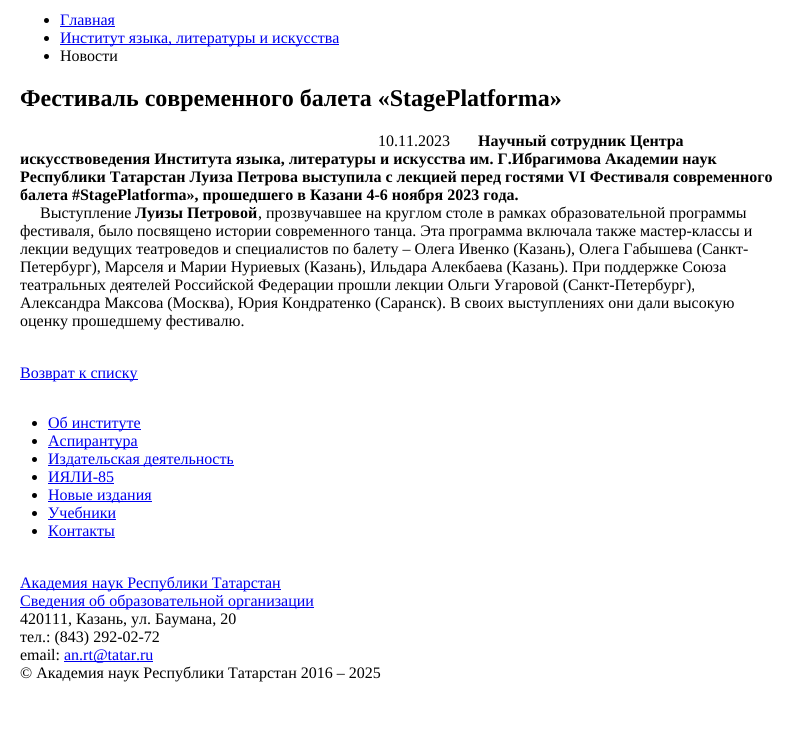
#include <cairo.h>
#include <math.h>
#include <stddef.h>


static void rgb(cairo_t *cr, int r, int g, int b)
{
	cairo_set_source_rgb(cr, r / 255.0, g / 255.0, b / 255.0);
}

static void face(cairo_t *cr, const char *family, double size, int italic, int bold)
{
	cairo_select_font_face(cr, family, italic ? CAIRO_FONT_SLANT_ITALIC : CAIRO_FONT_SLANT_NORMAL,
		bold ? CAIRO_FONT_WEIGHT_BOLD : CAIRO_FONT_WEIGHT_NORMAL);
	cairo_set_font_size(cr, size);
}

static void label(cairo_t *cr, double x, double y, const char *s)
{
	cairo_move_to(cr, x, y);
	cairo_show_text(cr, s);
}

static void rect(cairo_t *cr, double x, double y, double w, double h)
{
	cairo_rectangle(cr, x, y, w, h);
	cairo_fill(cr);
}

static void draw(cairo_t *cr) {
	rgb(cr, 255, 255, 255);
	cairo_paint(cr);
	rgb(cr, 0, 0, 0);
	cairo_arc(cr, 46.5, 20.5, 2.5, 0, 2 * M_PI);
	cairo_fill(cr);
	face(cr, "Liberation Serif", 16, 0, 0);
	rgb(cr, 0, 0, 238);
	label(cr, 60, 25, "Главная");
	rect(cr, 60, 26, 55, 1);
	rgb(cr, 0, 0, 0);
	cairo_new_path(cr);
	cairo_arc(cr, 46.5, 38.5, 2.5, 0, 2 * M_PI);
	cairo_fill(cr);
	rgb(cr, 0, 0, 238);
	rect(cr, 60, 44, 279, 1);
	label(cr, 60, 43, "Институт языка, литературы и искусства");
	rgb(cr, 0, 0, 0);
	cairo_new_path(cr);
	cairo_arc(cr, 46.5, 56.5, 2.5, 0, 2 * M_PI);
	cairo_fill(cr);
	label(cr, 60, 61, "Новости");
	face(cr, "Liberation Serif", 24, 0, 1);
	label(cr, 20, 106, "Фестиваль современного балета «StagePlatforma»");
	face(cr, "Liberation Serif", 16, 0, 0);
	label(cr, 378, 146, "10.11.2023");
	face(cr, "Liberation Serif", 16, 0, 1);
	label(cr, 478, 146, "Научный сотрудник Центра");
	label(cr, 20, 164, "искусствоведения Института языка, литературы и искусства им. Г.Ибрагимова Академии наук");
	label(cr, 20, 182, "Республики Татарстан Луиза Петрова выступила с лекцией перед гостями VI Фестиваля современного");
	label(cr, 20, 200, "балета #StagePlatforma», прошедшего в Казани 4-6 ноября 2023 года.");
	face(cr, "Liberation Serif", 16, 0, 0);
	label(cr, 40, 218, "Выступление");
	face(cr, "Liberation Serif", 16, 0, 1);
	label(cr, 135, 218, "Луизы Петровой");
	face(cr, "Liberation Serif", 16, 0, 0);
	label(cr, 258, 218, ", прозвучавшее на круглом столе в рамках образовательной программы");
	label(cr, 20, 236, "фестиваля, было посвящено истории современного танца. Эта программа включала также мастер-классы и");
	label(cr, 20, 254, "лекции ведущих театроведов и специалистов по балету – Олега Ивенко (Казань), Олега Габышева (Санкт-");
	label(cr, 20, 272, "Петербург), Марселя и Марии Нуриевых (Казань), Ильдара Алекбаева (Казань). При поддержке Союза");
	label(cr, 20, 290, "театральных деятелей Российской Федерации прошли лекции Ольги Угаровой (Санкт-Петербург),");
	label(cr, 20, 308, "Александра Максова (Москва), Юрия Кондратенко (Саранск). В своих выступлениях они дали высокую");
	label(cr, 20, 326, "оценку прошедшему фестивалю.");
	rgb(cr, 0, 0, 238);
	rect(cr, 20, 379, 118, 1);
	label(cr, 20, 378, "Возврат к списку");
	rgb(cr, 0, 0, 0);
	cairo_new_path(cr);
	cairo_arc(cr, 34.5, 423.5, 2.5, 0, 2 * M_PI);
	cairo_fill(cr);
	rgb(cr, 0, 0, 238);
	rect(cr, 48, 429, 93, 1);
	label(cr, 48, 428, "Об институте");
	rgb(cr, 0, 0, 0);
	cairo_new_path(cr);
	cairo_arc(cr, 34.5, 441.5, 2.5, 0, 2 * M_PI);
	cairo_fill(cr);
	rgb(cr, 0, 0, 238);
	rect(cr, 48, 447, 90, 1);
	label(cr, 48, 446, "Аспирантура");
	rgb(cr, 0, 0, 0);
	cairo_new_path(cr);
	cairo_arc(cr, 34.5, 459.5, 2.5, 0, 2 * M_PI);
	cairo_fill(cr);
	rgb(cr, 0, 0, 238);
	rect(cr, 48, 465, 186, 1);
	label(cr, 48, 464, "Издательская деятельность");
	rgb(cr, 0, 0, 0);
	cairo_new_path(cr);
	cairo_arc(cr, 34.5, 477.5, 2.5, 0, 2 * M_PI);
	cairo_fill(cr);
	rgb(cr, 0, 0, 238);
	label(cr, 48, 482, "ИЯЛИ-85");
	rect(cr, 48, 483, 66, 1);
	rgb(cr, 0, 0, 0);
	cairo_new_path(cr);
	cairo_arc(cr, 34.5, 495.5, 2.5, 0, 2 * M_PI);
	cairo_fill(cr);
	rgb(cr, 0, 0, 238);
	rect(cr, 48, 501, 104, 1);
	label(cr, 48, 500, "Новые издания");
	rgb(cr, 0, 0, 0);
	cairo_new_path(cr);
	cairo_arc(cr, 34.5, 513.5, 2.5, 0, 2 * M_PI);
	cairo_fill(cr);
	rgb(cr, 0, 0, 238);
	label(cr, 48, 518, "Учебники");
	rect(cr, 48, 519, 68, 1);
	rgb(cr, 0, 0, 0);
	cairo_new_path(cr);
	cairo_arc(cr, 34.5, 531.5, 2.5, 0, 2 * M_PI);
	cairo_fill(cr);
	rgb(cr, 0, 0, 238);
	label(cr, 48, 536, "Контакты");
	rect(cr, 48, 537, 67, 1);
	rect(cr, 20, 589, 261, 1);
	label(cr, 20, 588, "Академия наук Республики Татарстан");
	rect(cr, 20, 607, 294, 1);
	label(cr, 20, 606, "Сведения об образовательной организации");
	rgb(cr, 0, 0, 0);
	label(cr, 20, 624, "420111, Казань, ул. Баумана, 20");
	label(cr, 20, 642, "тел.: (843) 292-02-72");
	label(cr, 20, 660, "email:");
	rgb(cr, 0, 0, 238);
	rect(cr, 64, 661, 89, 1);
	label(cr, 64, 660, "an.rt@tatar.ru");
	rgb(cr, 0, 0, 0);
	label(cr, 20, 678, "© Академия наук Республики Татарстан 2016 – 2025");
}

int main(void) {
	cairo_surface_t *surface = cairo_image_surface_create(CAIRO_FORMAT_RGB24, 798, 744);
	cairo_t *cr = cairo_create(surface);
	cairo_font_options_t *options = cairo_font_options_create();
	cairo_font_options_set_hint_metrics(options, CAIRO_HINT_METRICS_OFF);
	cairo_font_options_set_hint_style(options, CAIRO_HINT_STYLE_NONE);
	cairo_set_font_options(cr, options);
	cairo_set_miter_limit(cr, 4);
	draw(cr);
	cairo_surface_write_to_png(surface, "render.png");
	cairo_font_options_destroy(options);
	cairo_destroy(cr);
	cairo_surface_destroy(surface);
	return 0;
}
